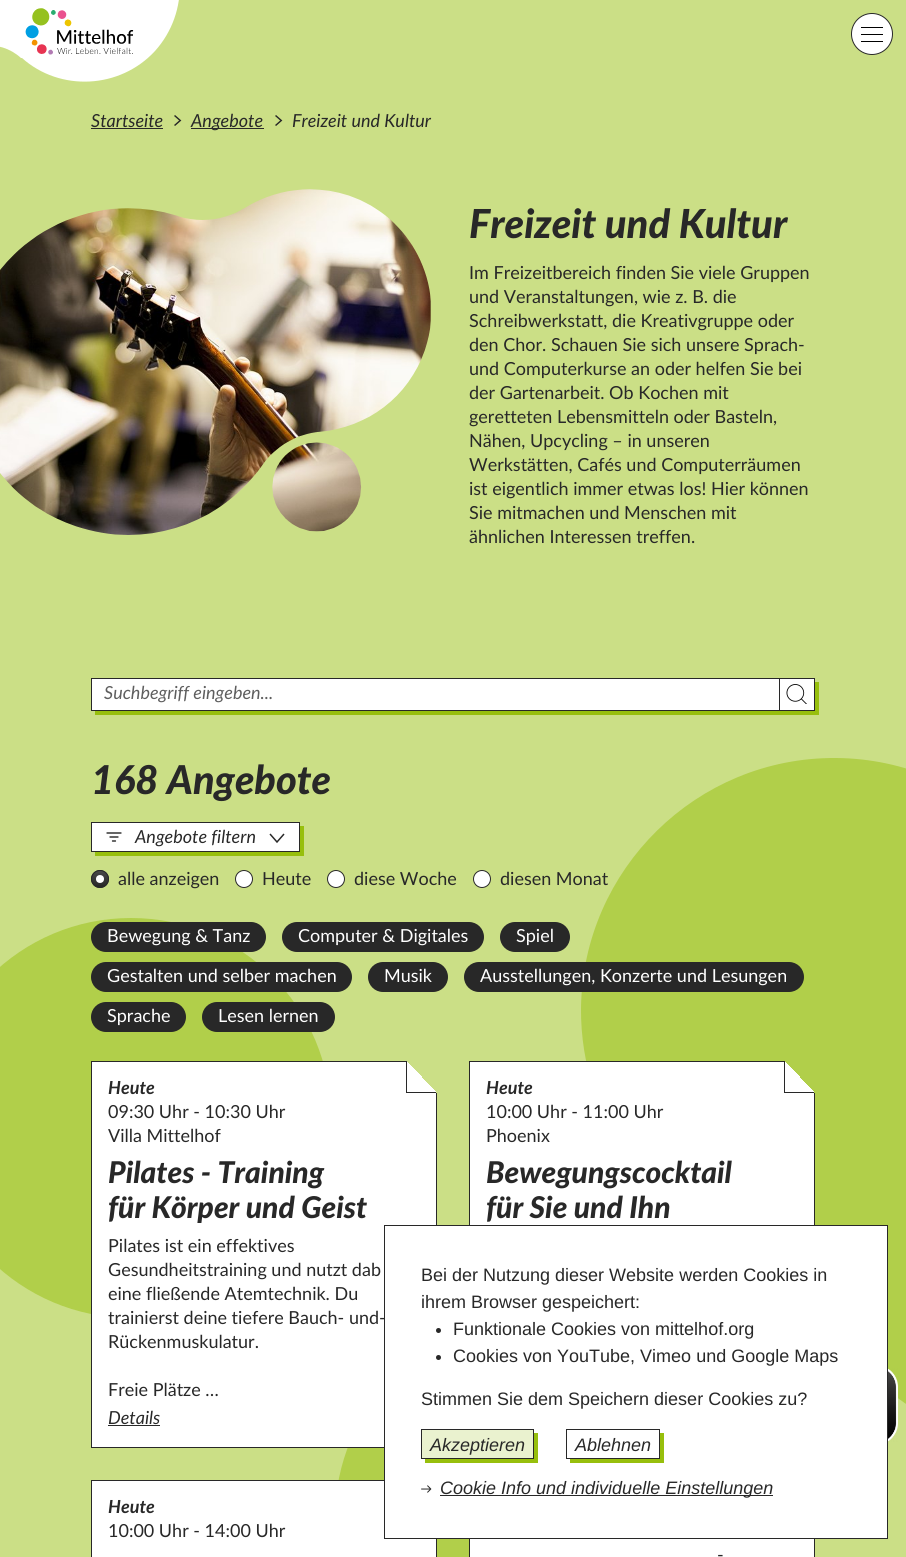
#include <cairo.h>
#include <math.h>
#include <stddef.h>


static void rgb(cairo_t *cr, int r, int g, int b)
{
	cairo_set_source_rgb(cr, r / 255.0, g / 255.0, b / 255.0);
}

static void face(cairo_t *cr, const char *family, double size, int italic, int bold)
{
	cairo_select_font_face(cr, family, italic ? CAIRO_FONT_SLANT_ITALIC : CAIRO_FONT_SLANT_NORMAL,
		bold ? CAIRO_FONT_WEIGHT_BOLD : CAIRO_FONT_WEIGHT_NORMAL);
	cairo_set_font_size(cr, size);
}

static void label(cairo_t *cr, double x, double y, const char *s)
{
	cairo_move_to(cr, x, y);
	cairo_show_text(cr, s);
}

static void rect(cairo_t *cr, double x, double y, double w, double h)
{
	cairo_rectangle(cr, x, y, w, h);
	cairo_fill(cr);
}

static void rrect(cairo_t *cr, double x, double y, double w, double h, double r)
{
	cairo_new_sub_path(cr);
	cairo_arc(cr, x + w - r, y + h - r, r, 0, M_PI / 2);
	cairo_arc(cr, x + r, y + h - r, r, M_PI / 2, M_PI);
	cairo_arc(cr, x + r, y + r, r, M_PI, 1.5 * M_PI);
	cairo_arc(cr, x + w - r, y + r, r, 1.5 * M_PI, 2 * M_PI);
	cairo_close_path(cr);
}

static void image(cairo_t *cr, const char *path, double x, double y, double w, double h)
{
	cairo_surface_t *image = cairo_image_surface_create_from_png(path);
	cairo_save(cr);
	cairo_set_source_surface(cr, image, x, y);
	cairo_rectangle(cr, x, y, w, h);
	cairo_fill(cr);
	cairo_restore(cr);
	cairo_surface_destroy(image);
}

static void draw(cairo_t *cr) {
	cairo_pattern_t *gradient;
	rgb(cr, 203, 223, 134);
	cairo_paint(cr);
	rgb(cr, 255, 255, 255);
	cairo_set_fill_rule(cr, CAIRO_FILL_RULE_EVEN_ODD);
	cairo_new_path(cr);
	cairo_move_to(cr, 21, 58);
	cairo_line_to(cr, 22, 58);
	cairo_curve_to(cr, 60, 92, 120, 89, 155, 51);
	cairo_curve_to(cr, 190, 12, 188, -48, 149, -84);
	cairo_curve_to(cr, 117, -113, 71, -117, 35, -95);
	cairo_curve_to(cr, 24, -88, 9, -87, -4, -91);
	cairo_curve_to(cr, -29, -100, -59, -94, -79, -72);
	cairo_curve_to(cr, -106, -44, -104, 2, -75, 28);
	cairo_curve_to(cr, -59, 43, -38, 49, -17, 46);
	cairo_curve_to(cr, -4, 44, 10, 48, 21, 58);
	cairo_close_path(cr);
	cairo_fill(cr);
	image(cr, "image0.png", 25, 8, 109, 47);
	cairo_arc(cr, 872, 34, 20.5, 0, 2 * M_PI);
	cairo_fill_preserve(cr);
	rgb(cr, 40, 40, 40);
	cairo_set_line_width(cr, 1);
	cairo_stroke(cr);
	rgb(cr, 0, 0, 0);
	rect(cr, 861, 27, 22, 1);
	rect(cr, 861, 34, 22, 1);
	rect(cr, 861, 41, 22, 1);
	face(cr, "Lato", 18, 1, 0);
	rgb(cr, 40, 40, 40);
	label(cr, 91, 127, "Startseite");
	rect(cr, 91, 128, 72, 1);
	image(cr, "image1.png", 174, 115, 8, 11);
	rect(cr, 191, 128, 73, 1);
	label(cr, 191, 127, "Angebote");
	image(cr, "image1.png", 275, 115, 8, 11);
	label(cr, 292, 127, "Freizeit und Kultur");
	image(cr, "image2.png", 0, 189, 431, 346);
	face(cr, "Lato Black", 40, 1, 0);
	label(cr, 469, 238, "Freizeit und Kultur");
	face(cr, "Lato", 18, 0, 0);
	label(cr, 469, 279, "Im Freizeitbereich finden Sie viele Gruppen");
	label(cr, 469, 303, "und Veranstaltungen, wie z. B. die");
	label(cr, 469, 327, "Schreibwerkstatt, die Kreativgruppe oder");
	label(cr, 469, 351, "den Chor. Schauen Sie sich unsere Sprach-");
	label(cr, 469, 375, "und Computerkurse an oder helfen Sie bei");
	label(cr, 469, 399, "der Gartenarbeit. Ob Kochen mit");
	label(cr, 469, 423, "geretteten Lebensmitteln oder Basteln,");
	label(cr, 469, 447, "Nähen, Upcycling – in unseren");
	label(cr, 469, 471, "Werkstätten, Cafés und Computerräumen");
	label(cr, 469, 495, "ist eigentlich immer etwas los! Hier können");
	label(cr, 469, 519, "Sie mitmachen und Menschen mit");
	label(cr, 469, 543, "ähnlichen Interessen treffen.");
	rgb(cr, 255, 255, 255);
	rect(cr, 92, 679, 722, 31);
	rgb(cr, 151, 191, 13);
	cairo_set_fill_rule(cr, CAIRO_FILL_RULE_WINDING);
	cairo_new_path(cr);
	cairo_move_to(cr, 95, 711);
	cairo_line_to(cr, 95, 715);
	cairo_line_to(cr, 819, 715);
	cairo_line_to(cr, 819, 682);
	cairo_line_to(cr, 815, 682);
	cairo_line_to(cr, 815, 711);
	cairo_close_path(cr);
	cairo_fill(cr);
	cairo_rectangle(cr, 779.5, 678.5, 35, 32);
	rgb(cr, 40, 40, 40);
	cairo_stroke(cr);
	cairo_rectangle(cr, 91.5, 678.5, 688, 32);
	cairo_stroke(cr);
	face(cr, "Lato", 18, 1, 0);
	rgb(cr, 94, 94, 94);
	label(cr, 104, 699, "Suchbegriff eingeben...");
	image(cr, "image3.png", 786, 684, 21, 20);
	face(cr, "Lato Black", 39.75, 1, 0);
	rgb(cr, 40, 40, 40);
	label(cr, 91, 794, "168 Angebote");
	rgb(cr, 151, 191, 13);
	cairo_new_path(cr);
	cairo_move_to(cr, 95, 852);
	cairo_line_to(cr, 95, 856);
	cairo_line_to(cr, 304, 856);
	cairo_line_to(cr, 304, 826);
	cairo_line_to(cr, 300, 826);
	cairo_line_to(cr, 300, 852);
	cairo_close_path(cr);
	cairo_fill(cr);
	rgb(cr, 255, 255, 255);
	cairo_rectangle(cr, 91.5, 822.5, 208, 29);
	cairo_fill_preserve(cr);
	rgb(cr, 40, 40, 40);
	cairo_stroke(cr);
	image(cr, "image4.png", 106, 832, 16, 10);
	face(cr, "Lato", 18, 1, 0);
	label(cr, 135, 843, "Angebote filtern");
	cairo_new_path(cr);
	cairo_move_to(cr, 270, 834);
	cairo_line_to(cr, 277, 842);
	cairo_line_to(cr, 284, 834);
	cairo_set_line_width(cr, 1.5);
	cairo_stroke(cr);
	cairo_arc(cr, 100, 879, 9, 0, 2 * M_PI);
	cairo_fill(cr);
	cairo_save(cr);
	rrect(cr, 91, 870, 18, 18, 9);
	cairo_clip(cr);
	gradient = cairo_pattern_create_linear(100, 871, 100, 887);
	cairo_pattern_add_color_stop_rgba(gradient, 0, 1, 1, 1, 0.15);
	cairo_pattern_add_color_stop_rgba(gradient, 1, 1, 1, 1, 0);
	cairo_set_source(cr, gradient);
	cairo_pattern_destroy(gradient);
	rect(cr, 92, 871, 16, 14);
	cairo_restore(cr);
	rgb(cr, 255, 255, 255);
	cairo_arc(cr, 100, 879, 4, 0, 2 * M_PI);
	cairo_fill(cr);
	cairo_arc(cr, 100, 879, 8.5, 0, 2 * M_PI);
	rgb(cr, 40, 40, 40);
	cairo_set_line_width(cr, 1);
	cairo_stroke(cr);
	face(cr, "Lato", 18, 0, 0);
	label(cr, 118, 885, "alle anzeigen");
	rgb(cr, 255, 255, 255);
	cairo_new_path(cr);
	cairo_arc(cr, 244, 879, 8.5, 0, 2 * M_PI);
	cairo_fill_preserve(cr);
	rgb(cr, 40, 40, 40);
	cairo_stroke(cr);
	label(cr, 262, 885, "Heute");
	rgb(cr, 255, 255, 255);
	cairo_new_path(cr);
	cairo_arc(cr, 336, 879, 8.5, 0, 2 * M_PI);
	cairo_fill_preserve(cr);
	rgb(cr, 40, 40, 40);
	cairo_stroke(cr);
	label(cr, 354, 885, "diese Woche");
	rgb(cr, 255, 255, 255);
	cairo_new_path(cr);
	cairo_arc(cr, 482, 879, 8.5, 0, 2 * M_PI);
	cairo_fill_preserve(cr);
	rgb(cr, 40, 40, 40);
	cairo_stroke(cr);
	rgb(cr, 177, 207, 74);
	cairo_arc(cr, 535, 1518, 200, 0, 2 * M_PI);
	cairo_fill(cr);
	cairo_set_fill_rule(cr, CAIRO_FILL_RULE_EVEN_ODD);
	cairo_new_path(cr);
	cairo_move_to(cr, 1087, 1010);
	cairo_line_to(cr, 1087, 1007);
	cairo_curve_to(cr, 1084, 870, 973, 759, 836, 758);
	cairo_curve_to(cr, 697, 757, 583, 869, 581, 1008);
	cairo_curve_to(cr, 580, 1123, 656, 1220, 760, 1252);
	cairo_curve_to(cr, 795, 1263, 824, 1288, 838, 1321);
	cairo_curve_to(cr, 866, 1388, 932, 1435, 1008, 1436);
	cairo_curve_to(cr, 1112, 1437, 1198, 1354, 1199, 1250);
	cairo_curve_to(cr, 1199, 1192, 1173, 1139, 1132, 1105);
	cairo_curve_to(cr, 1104, 1081, 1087, 1047, 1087, 1010);
	cairo_close_path(cr);
	cairo_fill(cr);
	rgb(cr, 40, 40, 40);
	label(cr, 500, 885, "diesen Monat");
	rgb(cr, 177, 207, 74);
	cairo_new_path(cr);
	cairo_arc(cr, 131, 1118, 200, 0, 2 * M_PI);
	cairo_fill(cr);
	rgb(cr, 40, 40, 40);
	rrect(cr, 91, 922, 175, 30, 15);
	cairo_fill(cr);
	rgb(cr, 255, 255, 255);
	label(cr, 107, 942, "Bewegung & Tanz");
	rgb(cr, 40, 40, 40);
	rrect(cr, 282, 922, 202, 30, 15);
	cairo_fill(cr);
	rgb(cr, 255, 255, 255);
	label(cr, 298, 942, "Computer & Digitales");
	rgb(cr, 40, 40, 40);
	rrect(cr, 500, 922, 70, 30, 15);
	cairo_fill(cr);
	rgb(cr, 255, 255, 255);
	label(cr, 516, 942, "Spiel");
	rgb(cr, 40, 40, 40);
	rrect(cr, 91, 962, 261, 30, 15);
	cairo_fill(cr);
	rgb(cr, 255, 255, 255);
	label(cr, 107, 982, "Gestalten und selber machen");
	rgb(cr, 40, 40, 40);
	rrect(cr, 368, 962, 80, 30, 15);
	cairo_fill(cr);
	rgb(cr, 255, 255, 255);
	label(cr, 384, 982, "Musik");
	rgb(cr, 40, 40, 40);
	rrect(cr, 464, 962, 340, 30, 15);
	cairo_fill(cr);
	rgb(cr, 255, 255, 255);
	label(cr, 480, 982, "Ausstellungen, Konzerte und Lesungen");
	rgb(cr, 40, 40, 40);
	rrect(cr, 91, 1002, 95, 30, 15);
	cairo_fill(cr);
	rgb(cr, 255, 255, 255);
	label(cr, 107, 1022, "Sprache");
	rgb(cr, 40, 40, 40);
	rrect(cr, 202, 1002, 133, 30, 15);
	cairo_fill(cr);
	rgb(cr, 255, 255, 255);
	label(cr, 218, 1022, "Lesen lernen");
	rgb(cr, 40, 40, 40);
	rect(cr, 91, 1447, 293, 1);
	rect(cr, 91, 1061, 1, 387);
	rect(cr, 92, 1061, 315, 1);
	gradient = cairo_pattern_create_linear(437, 1062, 406, 1091);
	cairo_pattern_add_color_stop_rgba(gradient, 0.5, 0.796, 0.875, 0.525, 1);
	cairo_pattern_add_color_stop_rgba(gradient, 0.5, 1, 1, 1, 1);
	cairo_set_source(cr, gradient);
	cairo_pattern_destroy(gradient);
	rect(cr, 407, 1062, 29, 30);
	rgb(cr, 40, 40, 40);
	rect(cr, 406, 1092, 30, 1);
	rect(cr, 406, 1061, 1, 32);
	rgb(cr, 255, 255, 255);
	rect(cr, 92, 1062, 314, 31);
	rect(cr, 92, 1093, 344, 354);
	rgb(cr, 40, 40, 40);
	rect(cr, 436, 1093, 1, 132);
	face(cr, "Lato", 18, 1, 1);
	label(cr, 108, 1094, "Heute");
	face(cr, "Lato", 18, 0, 0);
	label(cr, 108, 1118, "09:30 Uhr - 10:30 Uhr");
	label(cr, 108, 1142, "Villa Mittelhof");
	face(cr, "Lato Black", 30, 1, 0);
	label(cr, 108, 1183, "Pilates - Training");
	label(cr, 108, 1218, "für Körper und Geist");
	face(cr, "Lato", 18, 0, 0);
	label(cr, 108, 1252, "Pilates ist ein effektives");
	label(cr, 108, 1276, "Gesundheitstraining und nutzt dab");
	label(cr, 108, 1300, "eine fließende Atemtechnik. Du");
	label(cr, 108, 1324, "trainierst deine tiefere Bauch- und-");
	label(cr, 108, 1348, "Rückenmuskulatur.");
	label(cr, 108, 1396, "Freie Plätze …");
	face(cr, "Lato", 18, 1, 0);
	label(cr, 108, 1424, "Details");
	rect(cr, 108, 1425, 52, 1);
	rect(cr, 469, 1061, 1, 164);
	rect(cr, 470, 1061, 315, 1);
	gradient = cairo_pattern_create_linear(815, 1062, 784, 1091);
	cairo_pattern_add_color_stop_rgba(gradient, 0.5, 0.694, 0.812, 0.29, 1);
	cairo_pattern_add_color_stop_rgba(gradient, 0.5, 1, 1, 1, 1);
	cairo_set_source(cr, gradient);
	cairo_pattern_destroy(gradient);
	rect(cr, 785, 1062, 29, 30);
	rgb(cr, 40, 40, 40);
	rect(cr, 784, 1092, 30, 1);
	rect(cr, 784, 1061, 1, 32);
	rgb(cr, 255, 255, 255);
	rect(cr, 470, 1062, 314, 31);
	rect(cr, 470, 1093, 344, 132);
	rgb(cr, 40, 40, 40);
	rect(cr, 814, 1093, 1, 132);
	face(cr, "Lato", 18, 1, 1);
	label(cr, 486, 1094, "Heute");
	face(cr, "Lato", 18, 0, 0);
	label(cr, 486, 1118, "10:00 Uhr - 11:00 Uhr");
	label(cr, 486, 1142, "Phoenix");
	face(cr, "Lato Black", 30, 1, 0);
	label(cr, 486, 1183, "Bewegungscocktail");
	label(cr, 486, 1218, "für Sie und Ihn");
	rect(cr, 91, 1480, 1, 77);
	rect(cr, 92, 1480, 292, 1);
	rgb(cr, 255, 255, 255);
	rect(cr, 92, 1481, 292, 31);
	rect(cr, 92, 1512, 344, 45);
	rgb(cr, 40, 40, 40);
	rect(cr, 436, 1539, 1, 18);
	face(cr, "Lato", 18, 1, 1);
	label(cr, 108, 1513, "Heute");
	face(cr, "Lato", 18, 0, 0);
	label(cr, 108, 1537, "10:00 Uhr - 14:00 Uhr");
	rect(cr, 469, 1539, 1, 18);
	rgb(cr, 255, 255, 255);
	rect(cr, 470, 1539, 344, 18);
	rgb(cr, 40, 40, 40);
	rect(cr, 814, 1539, 1, 18);
	label(cr, 717, 1561, "-");
	rgb(cr, 255, 255, 255);
	cairo_rectangle(cr, 384.5, 1225.5, 503, 313);
	cairo_fill_preserve(cr);
	rgb(cr, 40, 40, 40);
	cairo_stroke(cr);
	face(cr, "Liberation Sans", 18, 0, 0);
	label(cr, 421, 1281, "Bei der Nutzung dieser Website werden Cookies in");
	label(cr, 421, 1308, "ihrem Browser gespeichert:");
	cairo_new_path(cr);
	cairo_arc(cr, 438.5, 1330.5, 2.5, 0, 2 * M_PI);
	cairo_fill(cr);
	label(cr, 453, 1335, "Funktionale Cookies von mittelhof.org");
	cairo_new_path(cr);
	cairo_arc(cr, 438.5, 1357.5, 2.5, 0, 2 * M_PI);
	cairo_fill(cr);
	label(cr, 453, 1362, "Cookies von YouTube, Vimeo und Google Maps");
	label(cr, 421, 1405, "Stimmen Sie dem Speichern dieser Cookies zu?");
	rgb(cr, 151, 191, 13);
	cairo_set_fill_rule(cr, CAIRO_FILL_RULE_WINDING);
	cairo_new_path(cr);
	cairo_move_to(cr, 425, 1459);
	cairo_line_to(cr, 425, 1463);
	cairo_line_to(cr, 538, 1463);
	cairo_line_to(cr, 538, 1433);
	cairo_line_to(cr, 534, 1433);
	cairo_line_to(cr, 534, 1459);
	cairo_close_path(cr);
	cairo_fill(cr);
	rgb(cr, 234, 242, 207);
	cairo_rectangle(cr, 421.5, 1429.5, 112, 29);
	cairo_fill_preserve(cr);
	rgb(cr, 40, 40, 40);
	cairo_stroke(cr);
	face(cr, "Liberation Sans", 18, 1, 0);
	label(cr, 430, 1451, "Akzeptieren");
	rgb(cr, 151, 191, 13);
	cairo_new_path(cr);
	cairo_move_to(cr, 570, 1459);
	cairo_line_to(cr, 570, 1463);
	cairo_line_to(cr, 664, 1463);
	cairo_line_to(cr, 664, 1433);
	cairo_line_to(cr, 660, 1433);
	cairo_line_to(cr, 660, 1459);
	cairo_close_path(cr);
	cairo_fill(cr);
	cairo_rectangle(cr, 566.5, 1429.5, 93, 29);
	rgb(cr, 40, 40, 40);
	cairo_stroke(cr);
	label(cr, 575, 1451, "Ablehnen");
	image(cr, "image5.png", 421, 1485, 11, 8);
	rect(cr, 440, 1495, 333, 1);
	label(cr, 440, 1494, "Cookie Info und individuelle Einstellungen");
	image(cr, "image6.png", 888, 1368, 10, 74);
}

int main(void) {
	cairo_surface_t *surface = cairo_image_surface_create(CAIRO_FORMAT_RGB24, 906, 1557);
	cairo_t *cr = cairo_create(surface);
	cairo_font_options_t *options = cairo_font_options_create();
	cairo_font_options_set_hint_metrics(options, CAIRO_HINT_METRICS_OFF);
	cairo_font_options_set_hint_style(options, CAIRO_HINT_STYLE_NONE);
	cairo_set_font_options(cr, options);
	cairo_set_miter_limit(cr, 4);
	draw(cr);
	cairo_surface_write_to_png(surface, "render.png");
	cairo_font_options_destroy(options);
	cairo_destroy(cr);
	cairo_surface_destroy(surface);
	return 0;
}
